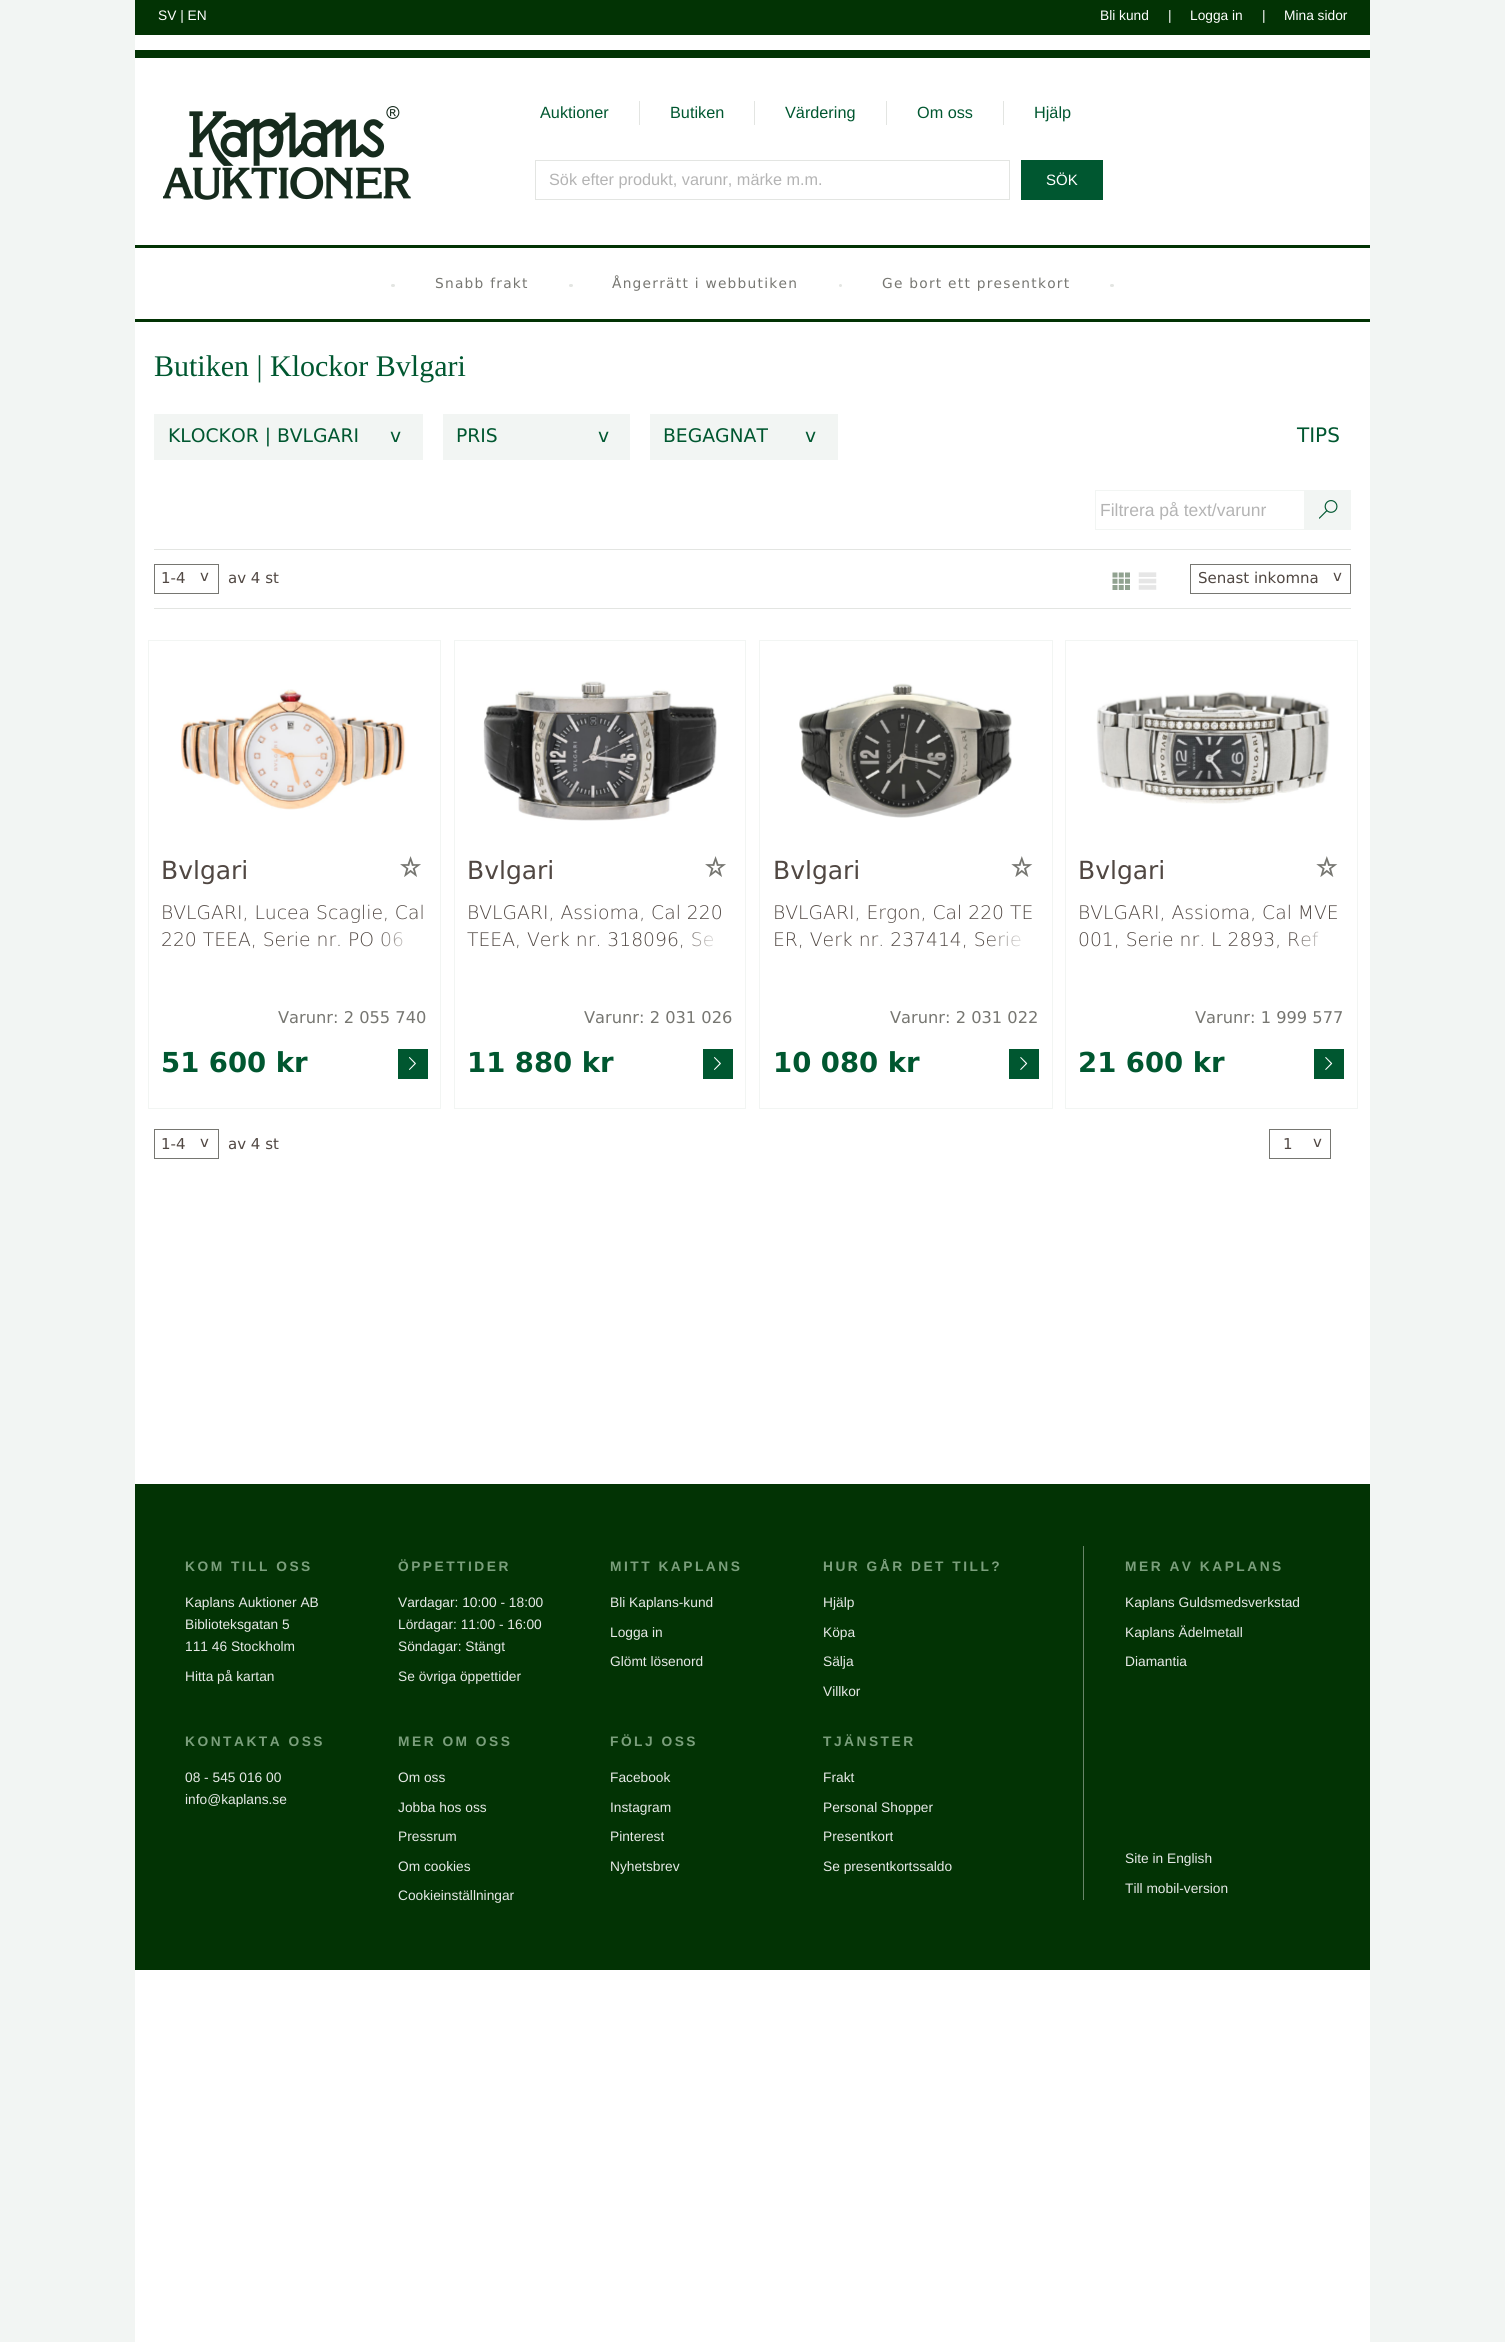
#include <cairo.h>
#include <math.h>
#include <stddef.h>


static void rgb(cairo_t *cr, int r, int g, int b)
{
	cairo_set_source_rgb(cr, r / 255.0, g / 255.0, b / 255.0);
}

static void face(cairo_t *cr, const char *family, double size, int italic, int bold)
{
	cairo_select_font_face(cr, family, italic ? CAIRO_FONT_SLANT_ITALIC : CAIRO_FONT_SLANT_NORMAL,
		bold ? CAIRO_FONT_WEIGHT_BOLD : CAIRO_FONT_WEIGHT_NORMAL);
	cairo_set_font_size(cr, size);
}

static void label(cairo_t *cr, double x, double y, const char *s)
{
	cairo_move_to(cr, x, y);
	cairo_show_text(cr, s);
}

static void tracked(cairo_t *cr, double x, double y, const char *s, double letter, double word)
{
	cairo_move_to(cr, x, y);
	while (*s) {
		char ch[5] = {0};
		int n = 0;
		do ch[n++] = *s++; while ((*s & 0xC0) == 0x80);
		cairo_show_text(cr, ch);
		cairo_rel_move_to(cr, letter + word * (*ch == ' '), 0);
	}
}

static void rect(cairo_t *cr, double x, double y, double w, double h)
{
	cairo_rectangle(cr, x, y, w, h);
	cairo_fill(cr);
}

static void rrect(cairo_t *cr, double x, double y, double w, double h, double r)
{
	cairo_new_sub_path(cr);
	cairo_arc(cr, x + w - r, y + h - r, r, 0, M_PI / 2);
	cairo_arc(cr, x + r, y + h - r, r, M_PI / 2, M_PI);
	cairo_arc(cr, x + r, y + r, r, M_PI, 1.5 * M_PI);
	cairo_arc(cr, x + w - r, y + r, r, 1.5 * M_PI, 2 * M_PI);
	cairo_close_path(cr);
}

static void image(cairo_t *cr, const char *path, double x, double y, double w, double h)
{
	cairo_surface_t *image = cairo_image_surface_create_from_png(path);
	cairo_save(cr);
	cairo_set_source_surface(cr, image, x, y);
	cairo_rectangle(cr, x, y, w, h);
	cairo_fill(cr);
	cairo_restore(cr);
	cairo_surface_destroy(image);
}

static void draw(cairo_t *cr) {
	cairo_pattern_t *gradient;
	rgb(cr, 242, 245, 243);
	cairo_paint(cr);
	rgb(cr, 255, 255, 255);
	rect(cr, 135, 35, 1235, 2307);
	rgb(cr, 2, 51, 4);
	rect(cr, 135, 0, 1235, 35);
	face(cr, "Liberation Sans", 13.75, 0, 0);
	rgb(cr, 255, 255, 255);
	label(cr, 158, 20, "SV | EN");
	label(cr, 1100, 20, "Bli kund");
	label(cr, 1168, 20, "|");
	label(cr, 1190, 20, "Logga in");
	label(cr, 1262, 20, "|");
	label(cr, 1284, 20, "Mina sidor");
	rgb(cr, 2, 51, 4);
	rect(cr, 135, 50, 1235, 8);
	image(cr, "image0.png", 163, 106, 248, 94);
	rgb(cr, 227, 229, 226);
	rect(cr, 639, 101, 1, 24);
	face(cr, "Liberation Sans", 16.25, 0, 0);
	rgb(cr, 0, 87, 48);
	label(cr, 540, 118, "Auktioner");
	rgb(cr, 227, 229, 226);
	rect(cr, 754, 101, 1, 24);
	rgb(cr, 0, 87, 48);
	label(cr, 670, 118, "Butiken");
	rgb(cr, 227, 229, 226);
	rect(cr, 886, 101, 1, 24);
	rgb(cr, 0, 87, 48);
	label(cr, 785, 118, "Värdering");
	rgb(cr, 227, 229, 226);
	rect(cr, 1003, 101, 1, 24);
	rgb(cr, 0, 87, 48);
	label(cr, 917, 118, "Om oss");
	label(cr, 1034, 118, "Hjälp");
	cairo_rectangle(cr, 535.5, 160.5, 474, 39);
	rgb(cr, 227, 229, 226);
	cairo_set_line_width(cr, 1);
	cairo_stroke(cr);
	rgb(cr, 180, 180, 180);
	label(cr, 549, 185, "Sök efter produkt, varunr, märke m.m.");
	rgb(cr, 0, 87, 48);
	rect(cr, 1021, 160, 82, 40);
	face(cr, "Liberation Sans", 15, 0, 0);
	rgb(cr, 255, 255, 255);
	label(cr, 1046, 185, "SÖK");
	rgb(cr, 2, 51, 4);
	rect(cr, 135, 245, 1235, 3);
	rgb(cr, 227, 229, 226);
	rrect(cr, 391, 284, 4, 3, 1.5);
	cairo_fill(cr);
	face(cr, "DejaVu Sans", 13.75, 0, 0);
	rgb(cr, 118, 118, 113);
	tracked(cr, 435, 288, "Snabb frakt", 1.25, 0);
	rgb(cr, 227, 229, 226);
	rrect(cr, 569, 284, 4, 3, 1.5);
	cairo_fill(cr);
	rgb(cr, 118, 118, 113);
	tracked(cr, 612, 288, "Ångerrätt i webbutiken", 1.25, 0);
	rgb(cr, 227, 229, 226);
	cairo_new_path(cr);
	cairo_arc(cr, 840.5, 285.5, 1.5, 0, 2 * M_PI);
	cairo_fill(cr);
	rgb(cr, 118, 118, 113);
	tracked(cr, 882, 288, "Ge bort ett presentkort", 1.25, 0);
	rgb(cr, 227, 229, 226);
	rrect(cr, 1110, 284, 4, 3, 1.5);
	cairo_fill(cr);
	rgb(cr, 2, 51, 4);
	rect(cr, 135, 319, 1235, 3);
	face(cr, "Liberation Serif", 30, 0, 0);
	rgb(cr, 0, 87, 48);
	label(cr, 154, 376, "Butiken | Klockor Bvlgari");
	rgb(cr, 242, 245, 243);
	rect(cr, 154, 414, 269, 46);
	face(cr, "DejaVu Sans", 18.75, 0, 0);
	rgb(cr, 0, 87, 48);
	label(cr, 168, 442, "KLOCKOR | BVLGARI");
	label(cr, 390, 442, "v");
	rgb(cr, 242, 245, 243);
	rect(cr, 443, 414, 187, 46);
	rgb(cr, 0, 87, 48);
	label(cr, 456, 442, "PRIS");
	label(cr, 598, 442, "v");
	rgb(cr, 242, 245, 243);
	rect(cr, 650, 414, 188, 46);
	rgb(cr, 0, 87, 48);
	label(cr, 663, 442, "BEGAGNAT");
	label(cr, 805, 442, "v");
	face(cr, "DejaVu Sans", 20, 0, 0);
	label(cr, 1297, 442, "TIPS");
	cairo_rectangle(cr, 1095.5, 490.5, 209, 39);
	rgb(cr, 242, 245, 243);
	cairo_stroke(cr);
	face(cr, "Liberation Sans", 17.5, 0, 0);
	rgb(cr, 180, 180, 180);
	label(cr, 1100, 516, "Filtrera på text/varunr");
	rgb(cr, 242, 245, 243);
	rect(cr, 1305, 490, 46, 40);
	image(cr, "image1.png", 1319, 500, 19, 19);
	rgb(cr, 227, 229, 226);
	rect(cr, 154, 549, 1197, 1);
	rect(cr, 154, 608, 1197, 1);
	cairo_rectangle(cr, 154.5, 564.5, 64, 29);
	rgb(cr, 118, 118, 113);
	cairo_stroke(cr);
	face(cr, "DejaVu Sans", 15, 0, 0);
	rgb(cr, 80, 71, 66);
	label(cr, 161, 583, "1-4");
	label(cr, 200, 581, "v");
	label(cr, 228, 583, "av 4 st");
	image(cr, "image2.png", 1112, 572, 18, 18);
	image(cr, "image3.png", 1138, 572, 19, 18);
	cairo_rectangle(cr, 1190.5, 564.5, 160, 29);
	rgb(cr, 118, 118, 113);
	cairo_stroke(cr);
	rgb(cr, 80, 71, 66);
	label(cr, 1198, 583, "Senast inkomna");
	label(cr, 1333, 581, "v");
	cairo_rectangle(cr, 148.5, 640.5, 292, 468);
	rgb(cr, 242, 245, 243);
	cairo_stroke(cr);
	image(cr, "image4.png", 180, 689, 226, 121);
	face(cr, "DejaVu Sans", 25, 0, 0);
	rgb(cr, 80, 71, 66);
	label(cr, 161, 879, "Bvlgari");
	image(cr, "image5.png", 400, 856, 21, 21);
	face(cr, "DejaVu Sans ExtraLight", 18.75, 0, 0);
	label(cr, 161, 919, "BVLGARI, Lucea Scaglie, Cal");
	label(cr, 161, 946, "220 TEEA, Serie nr. PO 06");
	gradient = cairo_pattern_create_linear(375, 939, 428, 939);
	cairo_pattern_add_color_stop_rgba(gradient, 0, 1, 1, 1, 0);
	cairo_pattern_add_color_stop_rgba(gradient, 0.8, 1, 1, 1, 1);
	cairo_set_source(cr, gradient);
	cairo_pattern_destroy(gradient);
	rect(cr, 382, 932, 21, 15);
	face(cr, "DejaVu Sans", 16.25, 0, 0);
	rgb(cr, 118, 118, 113);
	label(cr, 278, 1023, "Varunr: 2 055 740");
	face(cr, "DejaVu Sans", 27.5, 0, 1);
	rgb(cr, 0, 87, 48);
	label(cr, 161, 1072, "51 600 kr");
	rect(cr, 398, 1049, 30, 30);
	image(cr, "image6.png", 409, 1057, 7, 13);
	cairo_rectangle(cr, 454.5, 640.5, 291, 468);
	rgb(cr, 242, 245, 243);
	cairo_stroke(cr);
	image(cr, "image7.png", 483, 681, 234, 140);
	face(cr, "DejaVu Sans", 25, 0, 0);
	rgb(cr, 80, 71, 66);
	label(cr, 467, 879, "Bvlgari");
	image(cr, "image5.png", 705, 856, 21, 21);
	face(cr, "DejaVu Sans ExtraLight", 18.75, 0, 0);
	label(cr, 467, 919, "BVLGARI, Assioma, Cal 220");
	label(cr, 467, 946, "TEEA, Verk nr. 318096, Se");
	gradient = cairo_pattern_create_linear(680, 939, 733, 939);
	cairo_pattern_add_color_stop_rgba(gradient, 0, 1, 1, 1, 0);
	cairo_pattern_add_color_stop_rgba(gradient, 0.8, 1, 1, 1, 1);
	cairo_set_source(cr, gradient);
	cairo_pattern_destroy(gradient);
	rect(cr, 681, 932, 32, 16);
	face(cr, "DejaVu Sans", 16.25, 0, 0);
	rgb(cr, 118, 118, 113);
	label(cr, 584, 1023, "Varunr: 2 031 026");
	face(cr, "DejaVu Sans", 27.5, 0, 1);
	rgb(cr, 0, 87, 48);
	label(cr, 467, 1072, "11 880 kr");
	rect(cr, 703, 1049, 30, 30);
	image(cr, "image6.png", 714, 1057, 7, 13);
	cairo_rectangle(cr, 759.5, 640.5, 293, 468);
	rgb(cr, 242, 245, 243);
	cairo_stroke(cr);
	image(cr, "image8.png", 799, 683, 213, 135);
	face(cr, "DejaVu Sans", 25, 0, 0);
	rgb(cr, 80, 71, 66);
	label(cr, 773, 879, "Bvlgari");
	image(cr, "image9.png", 1011, 856, 22, 21);
	face(cr, "DejaVu Sans ExtraLight", 18.75, 0, 0);
	label(cr, 773, 919, "BVLGARI, Ergon, Cal 220 TE");
	label(cr, 773, 946, "ER, Verk nr. 237414, Serie");
	gradient = cairo_pattern_create_linear(986, 939, 1039, 939);
	cairo_pattern_add_color_stop_rgba(gradient, 0, 1, 1, 1, 0);
	cairo_pattern_add_color_stop_rgba(gradient, 0.8, 1, 1, 1, 1);
	cairo_set_source(cr, gradient);
	cairo_pattern_destroy(gradient);
	rect(cr, 987, 931, 33, 16);
	face(cr, "DejaVu Sans", 16.25, 0, 0);
	rgb(cr, 118, 118, 113);
	label(cr, 890, 1023, "Varunr: 2 031 022");
	face(cr, "DejaVu Sans", 27.5, 0, 1);
	rgb(cr, 0, 87, 48);
	label(cr, 773, 1072, "10 080 kr");
	rect(cr, 1009, 1049, 30, 30);
	image(cr, "image10.png", 1020, 1057, 8, 13);
	cairo_rectangle(cr, 1065.5, 640.5, 292, 468);
	rgb(cr, 242, 245, 243);
	cairo_stroke(cr);
	image(cr, "image11.png", 1096, 691, 234, 113);
	face(cr, "DejaVu Sans", 25, 0, 0);
	rgb(cr, 80, 71, 66);
	label(cr, 1078, 879, "Bvlgari");
	image(cr, "image9.png", 1316, 856, 22, 21);
	face(cr, "DejaVu Sans ExtraLight", 18.75, 0, 0);
	label(cr, 1078, 919, "BVLGARI, Assioma, Cal MVE");
	label(cr, 1078, 946, "001, Serie nr. L 2893, Ref");
	gradient = cairo_pattern_create_linear(1291, 939, 1344, 939);
	cairo_pattern_add_color_stop_rgba(gradient, 0, 1, 1, 1, 0);
	cairo_pattern_add_color_stop_rgba(gradient, 0.8, 1, 1, 1, 1);
	cairo_set_source(cr, gradient);
	cairo_pattern_destroy(gradient);
	rect(cr, 1292, 931, 27, 16);
	face(cr, "DejaVu Sans", 16.25, 0, 0);
	rgb(cr, 118, 118, 113);
	label(cr, 1195, 1023, "Varunr: 1 999 577");
	face(cr, "DejaVu Sans", 27.5, 0, 1);
	rgb(cr, 0, 87, 48);
	label(cr, 1078, 1072, "21 600 kr");
	rect(cr, 1314, 1049, 30, 30);
	image(cr, "image10.png", 1325, 1057, 8, 13);
	cairo_rectangle(cr, 154.5, 1129.5, 64, 29);
	rgb(cr, 118, 118, 113);
	cairo_stroke(cr);
	face(cr, "DejaVu Sans", 15, 0, 0);
	rgb(cr, 80, 71, 66);
	label(cr, 161, 1149, "1-4");
	label(cr, 200, 1147, "v");
	label(cr, 228, 1149, "av 4 st");
	cairo_rectangle(cr, 1269.5, 1129.5, 61, 29);
	rgb(cr, 118, 118, 113);
	cairo_stroke(cr);
	rgb(cr, 80, 71, 66);
	label(cr, 1283, 1149, "1");
	label(cr, 1313, 1147, "v");
	rgb(cr, 2, 51, 4);
	rect(cr, 135, 1484, 1235, 486);
	face(cr, "Liberation Sans", 13.75, 0, 1);
	rgb(cr, 123, 159, 124);
	tracked(cr, 185, 1571, "KOM TILL OSS", 2.5, 0);
	face(cr, "Liberation Sans", 13.75, 0, 0);
	rgb(cr, 231, 233, 231);
	label(cr, 185, 1607, "Kaplans Auktioner AB");
	label(cr, 185, 1629, "Biblioteksgatan 5");
	label(cr, 185, 1651, "111 46 Stockholm");
	label(cr, 185, 1681, "Hitta på kartan");
	face(cr, "Liberation Sans", 13.75, 0, 1);
	rgb(cr, 123, 159, 124);
	tracked(cr, 185, 1746, "KONTAKTA OSS", 2.5, 0);
	face(cr, "Liberation Sans", 13.75, 0, 0);
	rgb(cr, 231, 233, 231);
	label(cr, 185, 1782, "08 - 545 016 00");
	label(cr, 185, 1804, "info@kaplans.se");
	face(cr, "Liberation Sans", 13.75, 0, 1);
	rgb(cr, 123, 159, 124);
	tracked(cr, 398, 1571, "ÖPPETTIDER", 2.5, 0);
	face(cr, "Liberation Sans", 13.75, 0, 0);
	rgb(cr, 231, 233, 231);
	label(cr, 398, 1607, "Vardagar: 10:00 - 18:00");
	label(cr, 398, 1629, "Lördagar: 11:00 - 16:00");
	label(cr, 398, 1651, "Söndagar: Stängt");
	label(cr, 398, 1681, "Se övriga öppettider");
	face(cr, "Liberation Sans", 13.75, 0, 1);
	rgb(cr, 123, 159, 124);
	tracked(cr, 398, 1746, "MER OM OSS", 2.5, 0);
	face(cr, "Liberation Sans", 13.75, 0, 0);
	rgb(cr, 231, 233, 231);
	label(cr, 398, 1782, "Om oss");
	label(cr, 398, 1812, "Jobba hos oss");
	label(cr, 398, 1841, "Pressrum");
	label(cr, 398, 1871, "Om cookies");
	label(cr, 398, 1900, "Cookieinställningar");
	face(cr, "Liberation Sans", 13.75, 0, 1);
	rgb(cr, 123, 159, 124);
	tracked(cr, 610, 1571, "MITT KAPLANS", 2.5, 0);
	face(cr, "Liberation Sans", 13.75, 0, 0);
	rgb(cr, 231, 233, 231);
	label(cr, 610, 1607, "Bli Kaplans-kund");
	label(cr, 610, 1637, "Logga in");
	label(cr, 610, 1666, "Glömt lösenord");
	face(cr, "Liberation Sans", 13.75, 0, 1);
	rgb(cr, 123, 159, 124);
	tracked(cr, 610, 1746, "FÖLJ OSS", 2.5, 0);
	face(cr, "Liberation Sans", 13.75, 0, 0);
	rgb(cr, 231, 233, 231);
	label(cr, 610, 1782, "Facebook");
	label(cr, 610, 1812, "Instagram");
	label(cr, 610, 1841, "Pinterest");
	label(cr, 610, 1871, "Nyhetsbrev");
	face(cr, "Liberation Sans", 13.75, 0, 1);
	rgb(cr, 123, 159, 124);
	tracked(cr, 823, 1571, "HUR GÅR DET TILL?", 2.5, 0);
	face(cr, "Liberation Sans", 13.75, 0, 0);
	rgb(cr, 231, 233, 231);
	label(cr, 823, 1607, "Hjälp");
	label(cr, 823, 1637, "Köpa");
	label(cr, 823, 1666, "Sälja");
	label(cr, 823, 1696, "Villkor");
	face(cr, "Liberation Sans", 13.75, 0, 1);
	rgb(cr, 123, 159, 124);
	tracked(cr, 823, 1746, "TJÄNSTER", 2.5, 0);
	face(cr, "Liberation Sans", 13.75, 0, 0);
	rgb(cr, 231, 233, 231);
	label(cr, 823, 1782, "Frakt");
	label(cr, 823, 1812, "Personal Shopper");
	label(cr, 823, 1841, "Presentkort");
	label(cr, 823, 1871, "Se presentkortssaldo");
	rgb(cr, 103, 133, 104);
	rect(cr, 1083, 1546, 1, 354);
	face(cr, "Liberation Sans", 13.75, 0, 1);
	rgb(cr, 123, 159, 124);
	tracked(cr, 1125, 1571, "MER AV KAPLANS", 2.5, 0);
	face(cr, "Liberation Sans", 13.75, 0, 0);
	rgb(cr, 231, 233, 231);
	label(cr, 1125, 1607, "Kaplans Guldsmedsverkstad");
	label(cr, 1125, 1637, "Kaplans Ädelmetall");
	label(cr, 1125, 1666, "Diamantia");
	label(cr, 1125, 1863, "Site in English");
	label(cr, 1125, 1893, "Till mobil-version");
}

int main(void) {
	cairo_surface_t *surface = cairo_image_surface_create(CAIRO_FORMAT_RGB24, 1505, 2342);
	cairo_t *cr = cairo_create(surface);
	cairo_font_options_t *options = cairo_font_options_create();
	cairo_font_options_set_hint_metrics(options, CAIRO_HINT_METRICS_OFF);
	cairo_font_options_set_hint_style(options, CAIRO_HINT_STYLE_NONE);
	cairo_set_font_options(cr, options);
	cairo_set_miter_limit(cr, 4);
	draw(cr);
	cairo_surface_write_to_png(surface, "render.png");
	cairo_font_options_destroy(options);
	cairo_destroy(cr);
	cairo_surface_destroy(surface);
	return 0;
}
